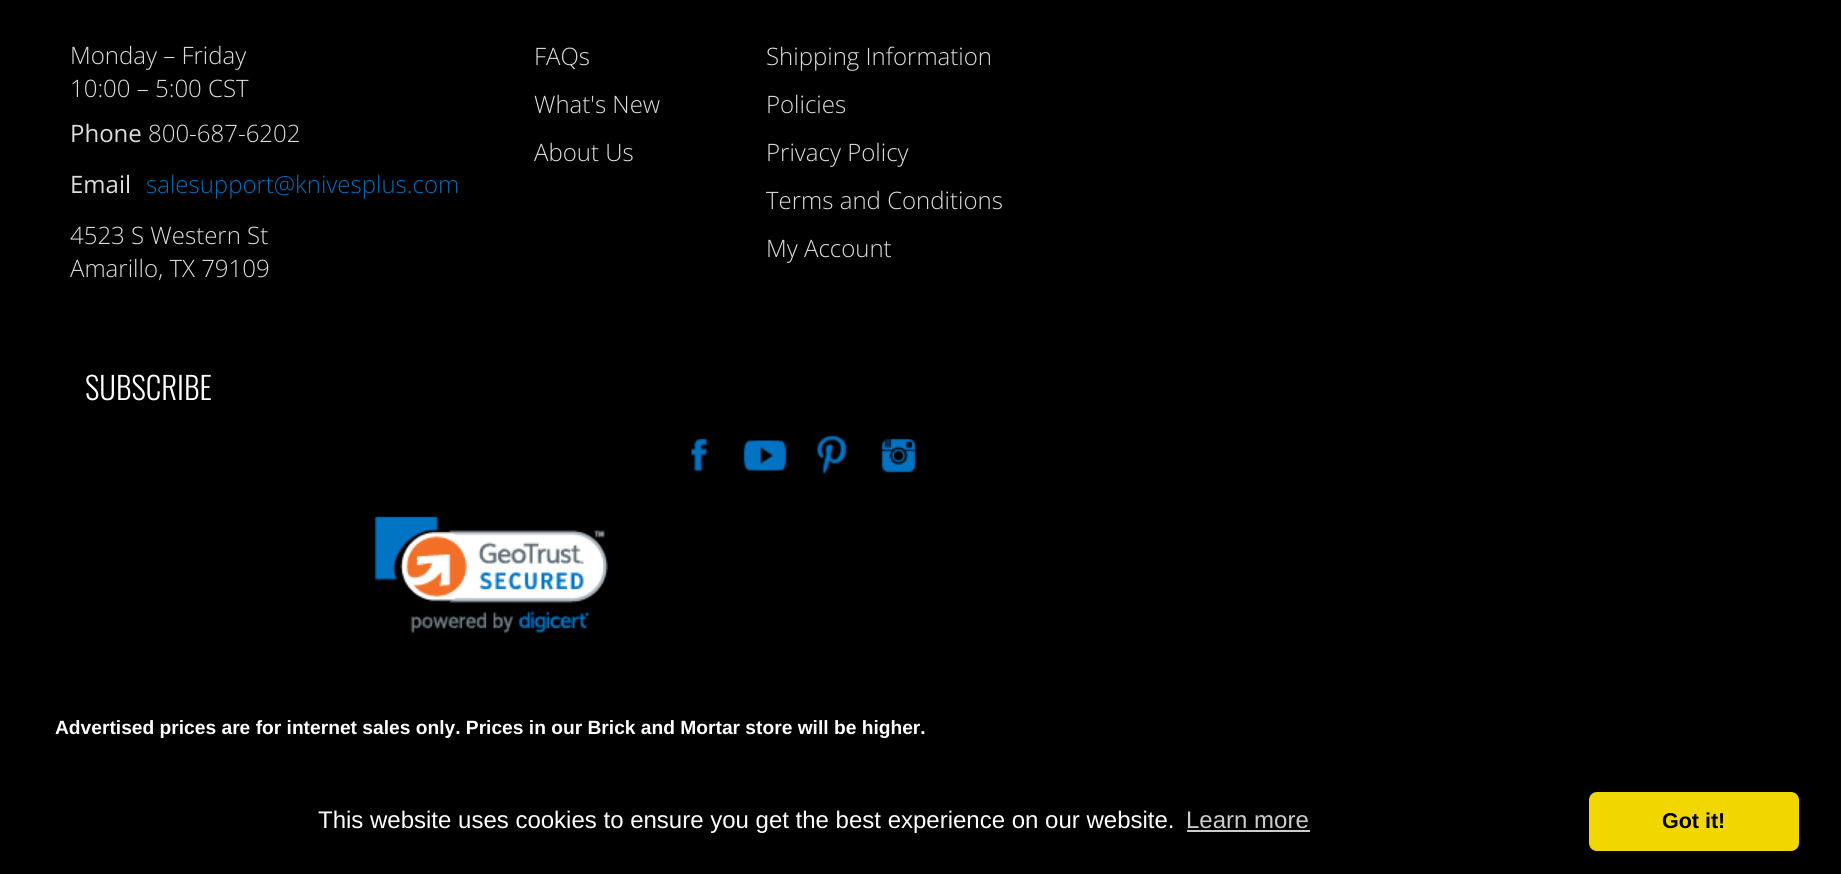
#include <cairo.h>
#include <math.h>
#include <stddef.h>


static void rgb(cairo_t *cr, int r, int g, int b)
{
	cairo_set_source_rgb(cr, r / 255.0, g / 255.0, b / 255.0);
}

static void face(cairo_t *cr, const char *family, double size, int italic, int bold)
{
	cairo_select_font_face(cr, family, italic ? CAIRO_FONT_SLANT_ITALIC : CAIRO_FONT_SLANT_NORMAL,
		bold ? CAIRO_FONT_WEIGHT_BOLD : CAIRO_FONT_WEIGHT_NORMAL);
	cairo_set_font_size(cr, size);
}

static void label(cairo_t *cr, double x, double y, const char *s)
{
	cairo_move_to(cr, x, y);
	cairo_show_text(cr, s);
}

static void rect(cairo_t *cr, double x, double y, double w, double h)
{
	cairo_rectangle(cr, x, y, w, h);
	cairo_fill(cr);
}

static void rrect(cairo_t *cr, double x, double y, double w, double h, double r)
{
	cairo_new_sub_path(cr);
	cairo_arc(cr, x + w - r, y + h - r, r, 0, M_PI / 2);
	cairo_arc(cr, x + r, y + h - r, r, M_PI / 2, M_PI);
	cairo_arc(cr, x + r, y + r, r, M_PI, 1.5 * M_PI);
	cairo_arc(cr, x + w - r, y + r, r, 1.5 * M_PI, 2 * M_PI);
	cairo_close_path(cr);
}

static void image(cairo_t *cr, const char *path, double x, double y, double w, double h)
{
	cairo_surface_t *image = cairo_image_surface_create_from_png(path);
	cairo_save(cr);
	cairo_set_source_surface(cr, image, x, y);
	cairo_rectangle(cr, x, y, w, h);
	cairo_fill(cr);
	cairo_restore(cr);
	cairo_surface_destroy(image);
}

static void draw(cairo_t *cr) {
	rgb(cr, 0, 0, 0);
	cairo_paint(cr);
	face(cr, "Open Sans Light", 24, 0, 0);
	rgb(cr, 221, 221, 221);
	label(cr, 70, 64, "Monday – Friday");
	label(cr, 70, 97, "10:00 – 5:00 CST");
	face(cr, "Open Sans", 24, 0, 0);
	label(cr, 70, 142, "Phone");
	face(cr, "Open Sans Light", 24, 0, 0);
	label(cr, 148, 142, "800-687-6202");
	face(cr, "Open Sans", 24, 0, 0);
	label(cr, 70, 193, "Email");
	face(cr, "Open Sans Light", 24, 0, 0);
	rgb(cr, 6, 108, 180);
	label(cr, 146, 193, "salesupport@knivesplus.com");
	rgb(cr, 221, 221, 221);
	label(cr, 70, 244, "4523 S Western St");
	label(cr, 70, 277, "Amarillo, TX 79109");
	label(cr, 534, 65, "FAQs");
	label(cr, 534, 113, "What's New");
	label(cr, 534, 161, "About Us");
	label(cr, 766, 65, "Shipping Information");
	label(cr, 766, 113, "Policies");
	label(cr, 766, 161, "Privacy Policy");
	label(cr, 766, 209, "Terms and Conditions");
	label(cr, 766, 257, "My Account");
	face(cr, "Oswald Light", 31, 0, 0);
	rgb(cr, 255, 255, 255);
	label(cr, 85, 400, "SUBSCRIBE");
	image(cr, "image0.png", 691, 438, 16, 33);
	image(cr, "image1.png", 743, 440, 44, 31);
	image(cr, "image2.png", 817, 435, 30, 39);
	image(cr, "image3.png", 881, 438, 35, 35);
	image(cr, "image4.png", 374, 516, 234, 117);
	face(cr, "Liberation Sans", 19.2, 0, 1);
	label(cr, 55, 734, "Advertised prices are for internet sales only. Prices in our Brick and Mortar store will be higher.");
	face(cr, "Liberation Sans", 24, 0, 0);
	label(cr, 318, 828, "This website uses cookies to ensure you get the best experience on our website.");
	rgb(cr, 204, 204, 204);
	label(cr, 1186, 828, "Learn more");
	rect(cr, 1187, 830, 123, 2);
	rgb(cr, 241, 214, 0);
	rrect(cr, 1589, 792, 210, 59, 8);
	cairo_fill(cr);
	face(cr, "Liberation Sans", 21.5, 0, 1);
	rgb(cr, 0, 0, 0);
	label(cr, 1662, 828, "Got it!");
}

int main(void) {
	cairo_surface_t *surface = cairo_image_surface_create(CAIRO_FORMAT_RGB24, 1841, 874);
	cairo_t *cr = cairo_create(surface);
	cairo_font_options_t *options = cairo_font_options_create();
	cairo_font_options_set_hint_metrics(options, CAIRO_HINT_METRICS_OFF);
	cairo_font_options_set_hint_style(options, CAIRO_HINT_STYLE_NONE);
	cairo_set_font_options(cr, options);
	cairo_set_miter_limit(cr, 4);
	draw(cr);
	cairo_surface_write_to_png(surface, "render.png");
	cairo_font_options_destroy(options);
	cairo_destroy(cr);
	cairo_surface_destroy(surface);
	return 0;
}
